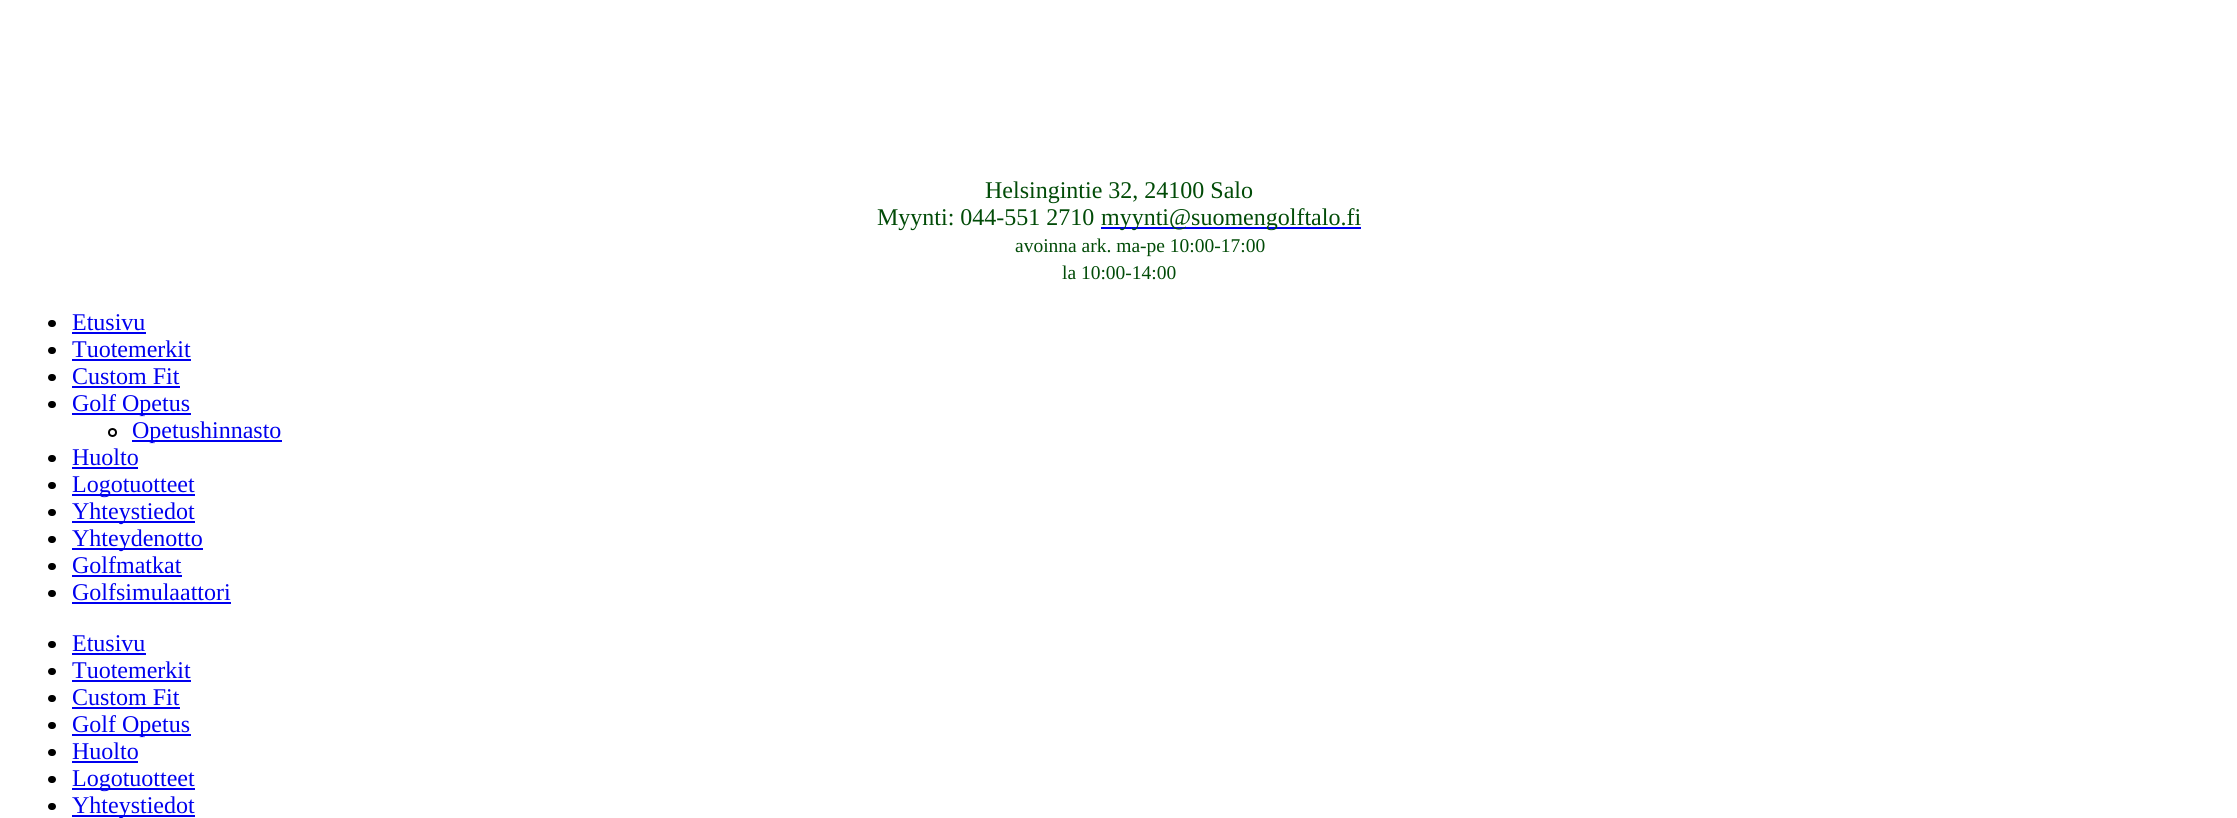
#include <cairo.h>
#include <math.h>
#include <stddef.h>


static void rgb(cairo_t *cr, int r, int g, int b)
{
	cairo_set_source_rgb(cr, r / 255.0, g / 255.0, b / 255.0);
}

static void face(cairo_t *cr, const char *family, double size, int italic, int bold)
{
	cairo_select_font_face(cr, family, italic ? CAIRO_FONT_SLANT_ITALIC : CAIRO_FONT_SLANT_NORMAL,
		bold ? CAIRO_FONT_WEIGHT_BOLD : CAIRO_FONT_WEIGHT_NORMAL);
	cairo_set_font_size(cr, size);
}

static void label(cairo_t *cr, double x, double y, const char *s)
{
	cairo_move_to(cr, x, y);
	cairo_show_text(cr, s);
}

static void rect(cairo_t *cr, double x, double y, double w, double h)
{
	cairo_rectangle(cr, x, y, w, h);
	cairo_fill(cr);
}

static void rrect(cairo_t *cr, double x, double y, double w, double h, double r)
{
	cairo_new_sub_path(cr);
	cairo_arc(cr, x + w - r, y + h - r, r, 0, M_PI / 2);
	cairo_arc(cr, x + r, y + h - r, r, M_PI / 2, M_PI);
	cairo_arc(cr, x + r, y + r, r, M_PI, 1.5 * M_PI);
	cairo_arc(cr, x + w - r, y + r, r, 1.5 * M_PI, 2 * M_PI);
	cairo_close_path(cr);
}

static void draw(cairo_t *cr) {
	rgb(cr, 255, 255, 255);
	cairo_paint(cr);
	face(cr, "Liberation Serif", 24, 0, 0);
	rgb(cr, 1, 75, 7);
	label(cr, 985, 198, "Helsingintie 32, 24100 Salo");
	label(cr, 877, 225, "Myynti: 044-551 2710");
	rgb(cr, 0, 0, 238);
	rect(cr, 1101, 227, 260, 2);
	rgb(cr, 1, 75, 7);
	label(cr, 1101, 225, "myynti@suomengolftalo.fi");
	face(cr, "Liberation Serif", 19.5, 0, 0);
	label(cr, 1015, 252, "avoinna ark. ma-pe 10:00-17:00");
	label(cr, 1062, 279, "la 10:00-14:00");
	rgb(cr, 0, 0, 0);
	rrect(cr, 48, 320, 8, 7, 3.5);
	cairo_fill(cr);
	face(cr, "Liberation Serif", 24, 0, 0);
	rgb(cr, 0, 0, 238);
	label(cr, 72, 330, "Etusivu");
	rect(cr, 72, 332, 74, 2);
	rgb(cr, 0, 0, 0);
	rrect(cr, 48, 347, 8, 7, 3.5);
	cairo_fill(cr);
	rgb(cr, 0, 0, 238);
	label(cr, 72, 357, "Tuotemerkit");
	rect(cr, 72, 359, 119, 2);
	rgb(cr, 0, 0, 0);
	rrect(cr, 48, 374, 8, 7, 3.5);
	cairo_fill(cr);
	rgb(cr, 0, 0, 238);
	label(cr, 72, 384, "Custom Fit");
	rect(cr, 72, 386, 108, 2);
	rgb(cr, 0, 0, 0);
	rrect(cr, 48, 401, 8, 7, 3.5);
	cairo_fill(cr);
	rgb(cr, 0, 0, 238);
	rect(cr, 72, 413, 119, 2);
	label(cr, 72, 411, "Golf Opetus");
	cairo_new_path(cr);
	cairo_arc(cr, 112.5, 432.5, 3.5, 0, 2 * M_PI);
	rgb(cr, 0, 0, 0);
	cairo_stroke(cr);
	rgb(cr, 0, 0, 238);
	rect(cr, 132, 440, 150, 2);
	label(cr, 132, 438, "Opetushinnasto");
	rgb(cr, 0, 0, 0);
	rrect(cr, 48, 455, 8, 7, 3.5);
	cairo_fill(cr);
	rgb(cr, 0, 0, 238);
	label(cr, 72, 465, "Huolto");
	rect(cr, 72, 467, 66, 2);
	rgb(cr, 0, 0, 0);
	rrect(cr, 48, 482, 8, 7, 3.5);
	cairo_fill(cr);
	rgb(cr, 0, 0, 238);
	rect(cr, 72, 494, 123, 2);
	label(cr, 72, 492, "Logotuotteet");
	rgb(cr, 0, 0, 0);
	rrect(cr, 48, 509, 8, 7, 3.5);
	cairo_fill(cr);
	rgb(cr, 0, 0, 238);
	rect(cr, 72, 521, 123, 2);
	label(cr, 72, 519, "Yhteystiedot");
	rgb(cr, 0, 0, 0);
	rrect(cr, 48, 536, 8, 7, 3.5);
	cairo_fill(cr);
	rgb(cr, 0, 0, 238);
	rect(cr, 72, 548, 131, 2);
	label(cr, 72, 546, "Yhteydenotto");
	rgb(cr, 0, 0, 0);
	rrect(cr, 48, 563, 8, 7, 3.5);
	cairo_fill(cr);
	rgb(cr, 0, 0, 238);
	label(cr, 72, 573, "Golfmatkat");
	rect(cr, 72, 575, 110, 2);
	rgb(cr, 0, 0, 0);
	rrect(cr, 48, 590, 8, 7, 3.5);
	cairo_fill(cr);
	rgb(cr, 0, 0, 238);
	label(cr, 72, 600, "Golfsimulaattori");
	rect(cr, 72, 602, 159, 2);
	rgb(cr, 0, 0, 0);
	rrect(cr, 48, 641, 8, 7, 3.5);
	cairo_fill(cr);
	rgb(cr, 0, 0, 238);
	label(cr, 72, 651, "Etusivu");
	rect(cr, 72, 653, 74, 2);
	rgb(cr, 0, 0, 0);
	rrect(cr, 48, 668, 8, 7, 3.5);
	cairo_fill(cr);
	rgb(cr, 0, 0, 238);
	label(cr, 72, 678, "Tuotemerkit");
	rect(cr, 72, 680, 119, 2);
	rgb(cr, 0, 0, 0);
	rrect(cr, 48, 695, 8, 7, 3.5);
	cairo_fill(cr);
	rgb(cr, 0, 0, 238);
	label(cr, 72, 705, "Custom Fit");
	rect(cr, 72, 707, 108, 2);
	rgb(cr, 0, 0, 0);
	rrect(cr, 48, 722, 8, 7, 3.5);
	cairo_fill(cr);
	rgb(cr, 0, 0, 238);
	rect(cr, 72, 734, 119, 2);
	label(cr, 72, 732, "Golf Opetus");
	rgb(cr, 0, 0, 0);
	rrect(cr, 48, 749, 8, 7, 3.5);
	cairo_fill(cr);
	rgb(cr, 0, 0, 238);
	label(cr, 72, 759, "Huolto");
	rect(cr, 72, 761, 66, 2);
	rgb(cr, 0, 0, 0);
	rrect(cr, 48, 776, 8, 7, 3.5);
	cairo_fill(cr);
	rgb(cr, 0, 0, 238);
	rect(cr, 72, 788, 123, 2);
	label(cr, 72, 786, "Logotuotteet");
	rgb(cr, 0, 0, 0);
	rrect(cr, 48, 803, 8, 7, 3.5);
	cairo_fill(cr);
	rgb(cr, 0, 0, 238);
	rect(cr, 72, 815, 123, 2);
	label(cr, 72, 813, "Yhteystiedot");
}

int main(void) {
	cairo_surface_t *surface = cairo_image_surface_create(CAIRO_FORMAT_RGB24, 2237, 818);
	cairo_t *cr = cairo_create(surface);
	cairo_font_options_t *options = cairo_font_options_create();
	cairo_font_options_set_hint_metrics(options, CAIRO_HINT_METRICS_OFF);
	cairo_font_options_set_hint_style(options, CAIRO_HINT_STYLE_NONE);
	cairo_set_font_options(cr, options);
	cairo_set_miter_limit(cr, 4);
	draw(cr);
	cairo_surface_write_to_png(surface, "render.png");
	cairo_font_options_destroy(options);
	cairo_destroy(cr);
	cairo_surface_destroy(surface);
	return 0;
}
